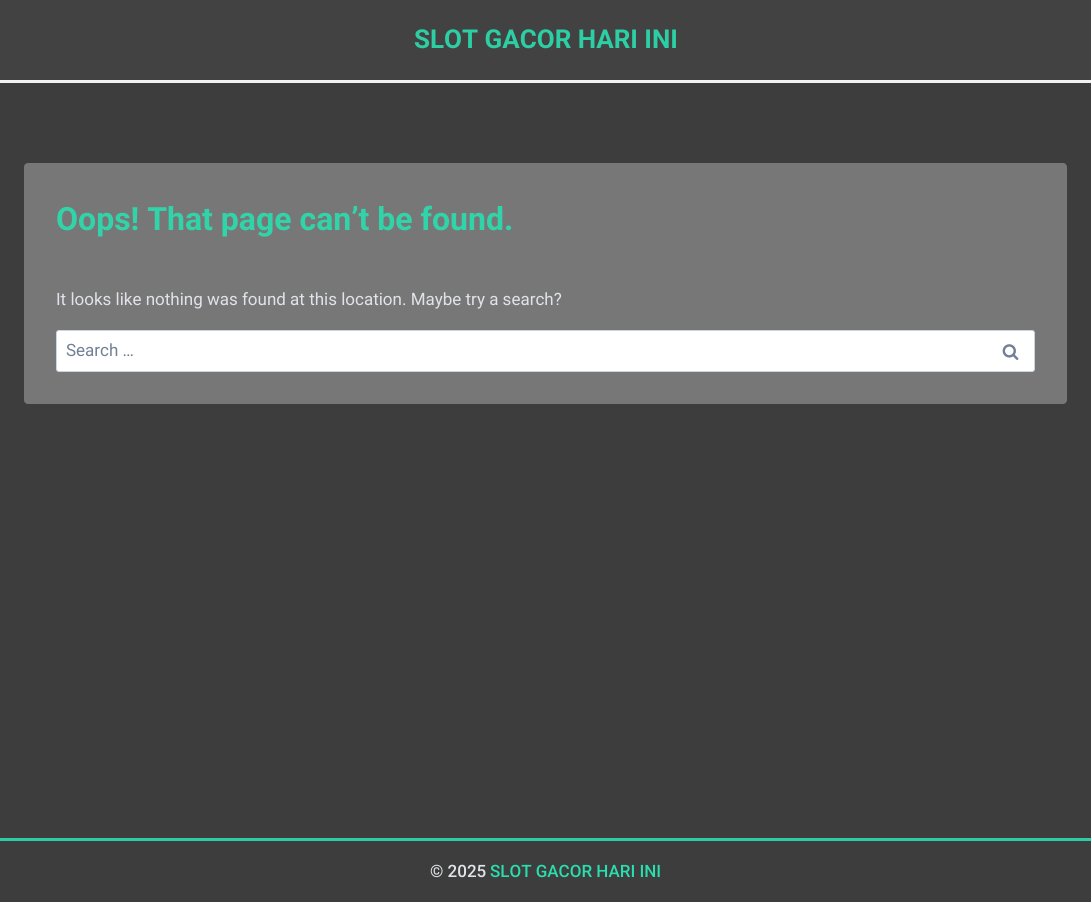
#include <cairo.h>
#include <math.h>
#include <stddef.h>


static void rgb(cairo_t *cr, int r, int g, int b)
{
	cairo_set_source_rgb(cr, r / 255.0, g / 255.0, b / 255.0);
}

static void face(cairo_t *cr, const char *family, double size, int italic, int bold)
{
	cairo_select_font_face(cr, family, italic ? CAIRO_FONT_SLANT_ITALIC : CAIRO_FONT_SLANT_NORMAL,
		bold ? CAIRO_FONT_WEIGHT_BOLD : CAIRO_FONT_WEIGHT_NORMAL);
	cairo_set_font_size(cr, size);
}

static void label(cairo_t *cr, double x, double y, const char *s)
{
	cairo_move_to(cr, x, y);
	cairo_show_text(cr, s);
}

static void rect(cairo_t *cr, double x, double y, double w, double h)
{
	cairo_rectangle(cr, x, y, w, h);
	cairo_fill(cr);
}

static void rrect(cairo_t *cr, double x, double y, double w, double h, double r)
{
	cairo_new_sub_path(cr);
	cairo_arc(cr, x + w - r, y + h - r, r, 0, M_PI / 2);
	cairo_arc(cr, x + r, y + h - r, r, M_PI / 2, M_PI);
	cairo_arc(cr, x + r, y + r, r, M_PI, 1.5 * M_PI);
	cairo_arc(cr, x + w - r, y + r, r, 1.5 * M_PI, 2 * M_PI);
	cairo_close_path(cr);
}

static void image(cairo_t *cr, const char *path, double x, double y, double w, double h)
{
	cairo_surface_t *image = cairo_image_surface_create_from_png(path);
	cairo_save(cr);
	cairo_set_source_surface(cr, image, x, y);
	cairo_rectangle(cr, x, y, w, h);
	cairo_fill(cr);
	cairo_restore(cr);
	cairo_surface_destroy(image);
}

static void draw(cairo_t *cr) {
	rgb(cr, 61, 61, 61);
	cairo_paint(cr);
	rgb(cr, 66, 66, 66);
	rect(cr, 0, 0, 1091, 80);
	rgb(cr, 242, 242, 242);
	rect(cr, 0, 80, 1091, 3);
	face(cr, "Roboto", 26, 0, 1);
	rgb(cr, 44, 206, 164);
	label(cr, 414, 48, "SLOT GACOR HARI INI");
	rgb(cr, 120, 119, 119);
	rrect(cr, 24, 163, 1043, 241, 4);
	cairo_fill(cr);
	face(cr, "Roboto", 32, 0, 1);
	rgb(cr, 49, 212, 169);
	label(cr, 56, 230, "Oops! That page can’t be found.");
	face(cr, "Roboto", 17, 0, 0);
	rgb(cr, 224, 227, 234);
	label(cr, 56, 305, "It looks like nothing was found at this location. Maybe try a search?");
	rgb(cr, 255, 255, 255);
	rrect(cr, 56.5, 330.5, 978, 41, 2.5);
	cairo_fill_preserve(cr);
	rgb(cr, 203, 213, 224);
	cairo_set_line_width(cr, 1);
	cairo_stroke(cr);
	rgb(cr, 113, 128, 150);
	label(cr, 66, 356, "Search …");
	image(cr, "image0.png", 1002, 344, 17, 16);
	rgb(cr, 43, 206, 164);
	rect(cr, 0, 838, 1091, 3);
	face(cr, "Roboto Medium", 17, 0, 0);
	rgb(cr, 224, 227, 234);
	label(cr, 430, 877, "© 2025");
	rgb(cr, 41, 222, 175);
	label(cr, 490, 877, "SLOT GACOR HARI INI");
}

int main(void) {
	cairo_surface_t *surface = cairo_image_surface_create(CAIRO_FORMAT_RGB24, 1091, 902);
	cairo_t *cr = cairo_create(surface);
	cairo_font_options_t *options = cairo_font_options_create();
	cairo_font_options_set_hint_metrics(options, CAIRO_HINT_METRICS_OFF);
	cairo_font_options_set_hint_style(options, CAIRO_HINT_STYLE_NONE);
	cairo_set_font_options(cr, options);
	cairo_set_miter_limit(cr, 4);
	draw(cr);
	cairo_surface_write_to_png(surface, "render.png");
	cairo_font_options_destroy(options);
	cairo_destroy(cr);
	cairo_surface_destroy(surface);
	return 0;
}
